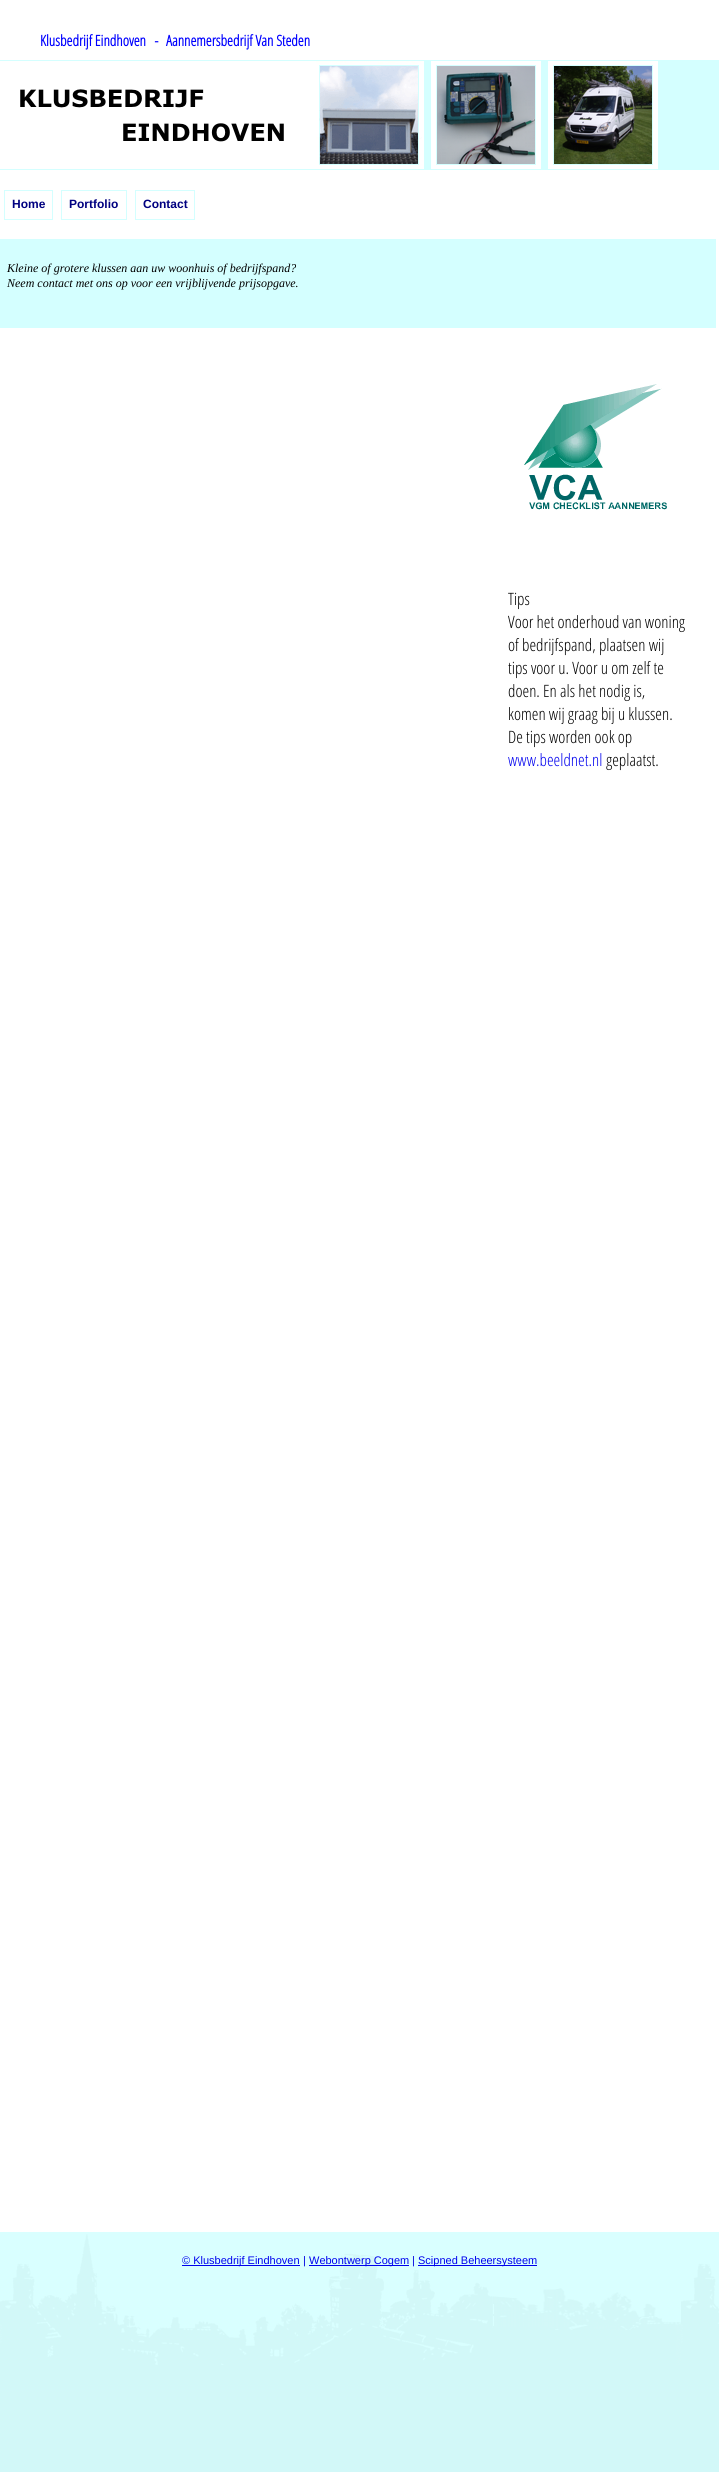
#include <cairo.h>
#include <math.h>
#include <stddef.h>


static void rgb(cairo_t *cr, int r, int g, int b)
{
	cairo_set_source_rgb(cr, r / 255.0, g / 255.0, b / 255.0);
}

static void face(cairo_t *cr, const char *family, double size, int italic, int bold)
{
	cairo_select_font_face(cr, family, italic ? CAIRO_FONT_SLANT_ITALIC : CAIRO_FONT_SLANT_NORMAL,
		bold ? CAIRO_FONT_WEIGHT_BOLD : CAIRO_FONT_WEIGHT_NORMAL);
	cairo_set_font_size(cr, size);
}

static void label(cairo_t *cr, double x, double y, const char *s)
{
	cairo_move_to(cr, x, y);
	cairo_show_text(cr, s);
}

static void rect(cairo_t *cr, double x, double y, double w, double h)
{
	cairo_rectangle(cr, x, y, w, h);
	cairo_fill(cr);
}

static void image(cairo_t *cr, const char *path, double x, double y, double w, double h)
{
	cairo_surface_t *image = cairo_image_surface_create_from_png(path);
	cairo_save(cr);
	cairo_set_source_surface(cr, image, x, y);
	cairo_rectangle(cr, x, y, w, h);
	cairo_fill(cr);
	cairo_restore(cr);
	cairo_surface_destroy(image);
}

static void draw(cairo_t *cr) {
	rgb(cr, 255, 255, 255);
	cairo_paint(cr);
	face(cr, "Open Sans Condensed", 15, 0, 1);
	rgb(cr, 0, 0, 255);
	label(cr, 40, 46, "Klusbedrijf Eindhoven   -");
	label(cr, 166, 46, "Aannemersbedrijf Van Steden");
	rgb(cr, 212, 255, 255);
	rect(cr, 0, 60, 719, 110);
	image(cr, "image0.png", 0, 61, 314, 108);
	image(cr, "image1.png", 314, 61, 110, 108);
	image(cr, "image2.png", 431, 61, 110, 108);
	image(cr, "image3.png", 548, 61, 110, 108);
	cairo_rectangle(cr, 4.5, 190.5, 48, 29);
	cairo_set_line_width(cr, 1);
	cairo_stroke(cr);
	face(cr, "Liberation Sans", 12, 0, 1);
	rgb(cr, 0, 0, 128);
	label(cr, 12, 208, "Home");
	cairo_rectangle(cr, 61.5, 190.5, 65, 29);
	rgb(cr, 212, 255, 255);
	cairo_stroke(cr);
	rgb(cr, 0, 0, 128);
	label(cr, 69, 208, "Portfolio");
	cairo_rectangle(cr, 135.5, 190.5, 59, 29);
	rgb(cr, 212, 255, 255);
	cairo_stroke(cr);
	rgb(cr, 0, 0, 128);
	label(cr, 143, 208, "Contact");
	rgb(cr, 212, 255, 255);
	rect(cr, 0, 239, 716, 89);
	face(cr, "Liberation Serif", 12, 1, 0);
	rgb(cr, 0, 0, 0);
	label(cr, 7, 272, "Kleine of grotere klussen aan uw woonhuis of bedrijfspand?");
	label(cr, 7, 287, "Neem contact met ons op voor een vrijblijvende prijsopgave.");
	image(cr, "image4.png", 524, 384, 143, 126);
	face(cr, "Open Sans Condensed Light", 17, 0, 0);
	label(cr, 508, 605, "Tips");
	label(cr, 508, 628, "Voor het onderhoud van woning");
	label(cr, 508, 651, "of bedrijfspand, plaatsen wij");
	label(cr, 508, 674, "tips voor u. Voor u om zelf te");
	label(cr, 508, 697, "doen. En als het nodig is,");
	label(cr, 508, 720, "komen wij graag bij u klussen.");
	label(cr, 508, 743, "De tips worden ook op");
	rgb(cr, 0, 0, 238);
	label(cr, 508, 766, "www.beeldnet.nl");
	rgb(cr, 0, 0, 0);
	label(cr, 606, 766, "geplaatst.");
	rgb(cr, 210, 248, 248);
	rect(cr, 0, 2365, 719, 107);
	image(cr, "image5.png", 0, 2232, 719, 133);
	rgb(cr, 0, 0, 238);
	rect(cr, 182, 2265, 118, 1);
	face(cr, "Liberation Sans", 11, 0, 0);
	label(cr, 182, 2264, "© Klusbedrijf Eindhoven");
	rgb(cr, 0, 0, 224);
	label(cr, 303, 2264, "|");
	rgb(cr, 0, 0, 238);
	rect(cr, 309, 2265, 100, 1);
	label(cr, 309, 2264, "Webontwerp Cogem");
	rgb(cr, 0, 0, 224);
	label(cr, 412, 2264, "|");
	rgb(cr, 0, 0, 238);
	rect(cr, 418, 2265, 119, 1);
	label(cr, 418, 2264, "Scipned Beheersysteem");
}

int main(void) {
	cairo_surface_t *surface = cairo_image_surface_create(CAIRO_FORMAT_RGB24, 719, 2472);
	cairo_t *cr = cairo_create(surface);
	cairo_font_options_t *options = cairo_font_options_create();
	cairo_font_options_set_hint_metrics(options, CAIRO_HINT_METRICS_OFF);
	cairo_font_options_set_hint_style(options, CAIRO_HINT_STYLE_NONE);
	cairo_set_font_options(cr, options);
	cairo_set_miter_limit(cr, 4);
	draw(cr);
	cairo_surface_write_to_png(surface, "render.png");
	cairo_font_options_destroy(options);
	cairo_destroy(cr);
	cairo_surface_destroy(surface);
	return 0;
}
